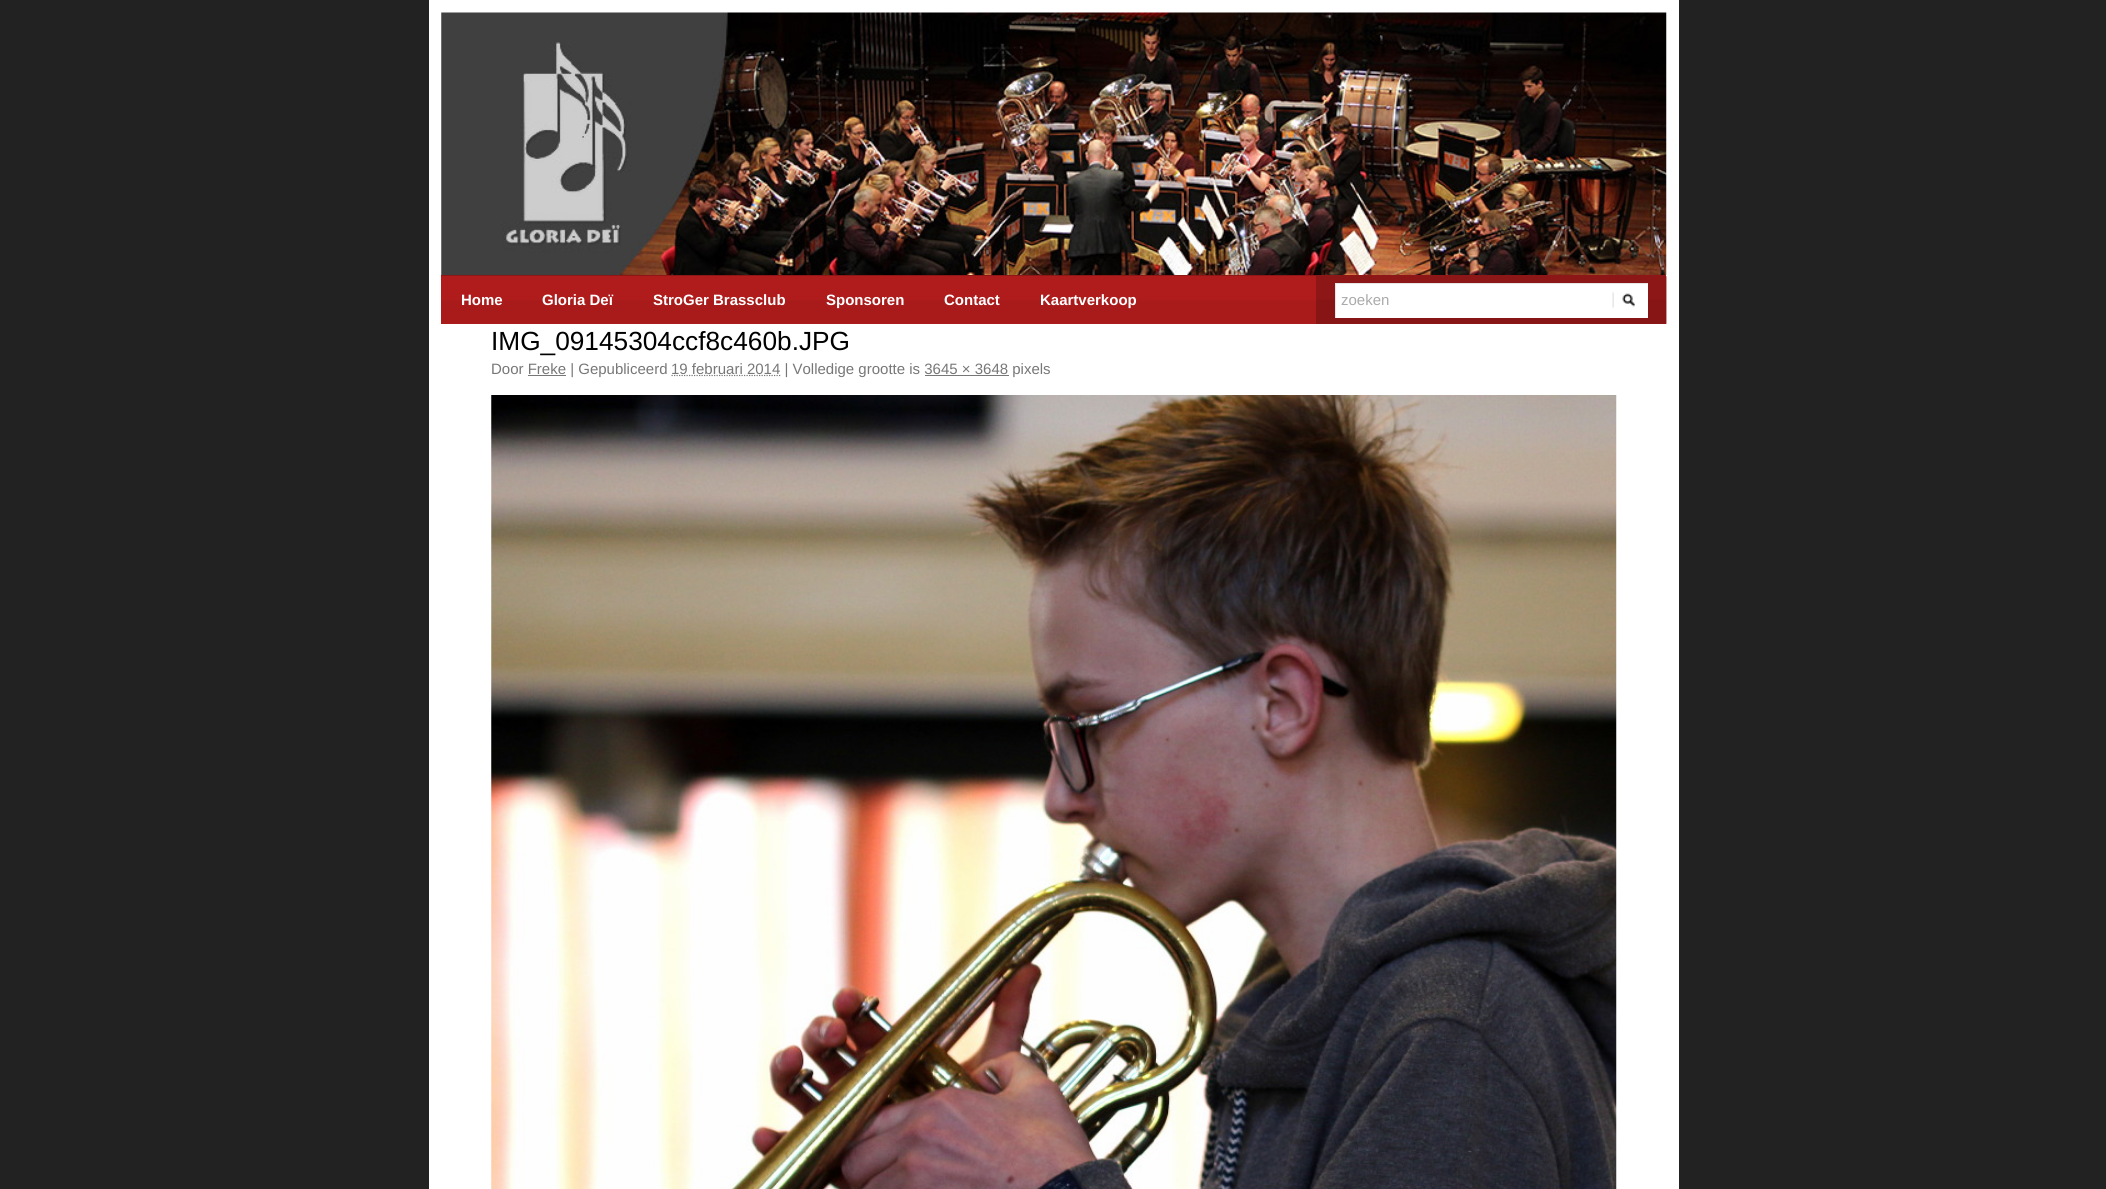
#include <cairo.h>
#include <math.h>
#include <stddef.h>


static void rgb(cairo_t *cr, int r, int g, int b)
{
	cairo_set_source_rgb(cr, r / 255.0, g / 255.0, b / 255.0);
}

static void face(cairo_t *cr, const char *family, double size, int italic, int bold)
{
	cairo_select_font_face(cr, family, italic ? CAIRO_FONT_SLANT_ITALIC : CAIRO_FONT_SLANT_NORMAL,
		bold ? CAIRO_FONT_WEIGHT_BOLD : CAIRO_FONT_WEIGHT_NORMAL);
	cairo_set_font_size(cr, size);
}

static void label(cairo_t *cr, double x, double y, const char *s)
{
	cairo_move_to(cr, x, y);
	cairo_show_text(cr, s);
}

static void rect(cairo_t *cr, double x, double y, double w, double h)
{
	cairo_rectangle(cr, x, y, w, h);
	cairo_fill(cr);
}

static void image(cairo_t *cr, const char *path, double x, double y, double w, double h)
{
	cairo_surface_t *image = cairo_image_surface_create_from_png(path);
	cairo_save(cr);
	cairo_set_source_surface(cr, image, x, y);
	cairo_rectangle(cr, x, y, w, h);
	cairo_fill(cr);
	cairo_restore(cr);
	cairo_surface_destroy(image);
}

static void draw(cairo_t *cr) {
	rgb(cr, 34, 34, 34);
	cairo_paint(cr);
	rgb(cr, 255, 255, 255);
	rect(cr, 429, 0, 1250, 1189);
	rgb(cr, 141, 22, 22);
	rect(cr, 441, 275, 1225, 1);
	image(cr, "image0.png", 441, 12, 1226, 263);
	rgb(cr, 176, 28, 28);
	rect(cr, 441, 276, 875, 48);
	image(cr, "image1.png", 441, 276, 1226, 48);
	face(cr, "Liberation Sans", 15, 0, 1);
	rgb(cr, 255, 255, 255);
	label(cr, 461, 305, "Home");
	label(cr, 542, 305, "Gloria Deï");
	label(cr, 653, 305, "StroGer Brassclub");
	label(cr, 826, 305, "Sponsoren");
	label(cr, 944, 305, "Contact");
	label(cr, 1040, 305, "Kaartverkoop");
	rgb(cr, 141, 22, 22);
	rect(cr, 1316, 276, 350, 48);
	image(cr, "image2.png", 1316, 276, 351, 48);
	rgb(cr, 255, 255, 255);
	rect(cr, 1336, 284, 312, 34);
	cairo_save(cr);
	cairo_rectangle(cr, 1335, 283, 313, 35);
	cairo_clip(cr);
	rgb(cr, 230, 230, 230);
	cairo_set_fill_rule(cr, CAIRO_FILL_RULE_EVEN_ODD);
	cairo_new_path(cr);
	cairo_move_to(cr, 1211, 159);
	cairo_line_to(cr, 1771, 159);
	cairo_line_to(cr, 1771, 441);
	cairo_line_to(cr, 1211, 441);
	cairo_close_path(cr);
	cairo_move_to(cr, 1336, 284);
	cairo_line_to(cr, 1649, 284);
	cairo_line_to(cr, 1649, 319);
	cairo_line_to(cr, 1336, 319);
	cairo_close_path(cr);
	cairo_fill(cr);
	cairo_restore(cr);
	face(cr, "Liberation Sans", 15, 0, 0);
	rgb(cr, 170, 170, 170);
	label(cr, 1341, 305, "zoeken");
	image(cr, "image3.png", 1612, 292, 23, 16);
	face(cr, "Liberation Sans", 26.25, 0, 0);
	rgb(cr, 0, 0, 0);
	label(cr, 491, 350, "IMG_09145304ccf8c460b.JPG");
	face(cr, "Liberation Sans", 15, 0, 0);
	rgb(cr, 119, 119, 119);
	label(cr, 491, 374, "Door Freke | Gepubliceerd");
	cairo_new_path(cr);
	cairo_move_to(cr, 671.5, 375.5);
	cairo_line_to(cr, 780.5, 375.5);
	cairo_set_line_width(cr, 1.2);
	cairo_set_dash(cr, (double[]){1.25, 1.25}, 2, 0);
	cairo_stroke(cr);
	label(cr, 671, 374, "19 februari 2014 | Volledige grootte is 3645 × 3648 pixels");
	rect(cr, 528, 375, 38, 1);
	rect(cr, 925, 375, 84, 1);
	image(cr, "image4.png", 491, 395, 1126, 794);
}

int main(void) {
	cairo_surface_t *surface = cairo_image_surface_create(CAIRO_FORMAT_RGB24, 2106, 1189);
	cairo_t *cr = cairo_create(surface);
	cairo_font_options_t *options = cairo_font_options_create();
	cairo_font_options_set_hint_metrics(options, CAIRO_HINT_METRICS_OFF);
	cairo_font_options_set_hint_style(options, CAIRO_HINT_STYLE_NONE);
	cairo_set_font_options(cr, options);
	cairo_set_miter_limit(cr, 4);
	draw(cr);
	cairo_surface_write_to_png(surface, "render.png");
	cairo_font_options_destroy(options);
	cairo_destroy(cr);
	cairo_surface_destroy(surface);
	return 0;
}
